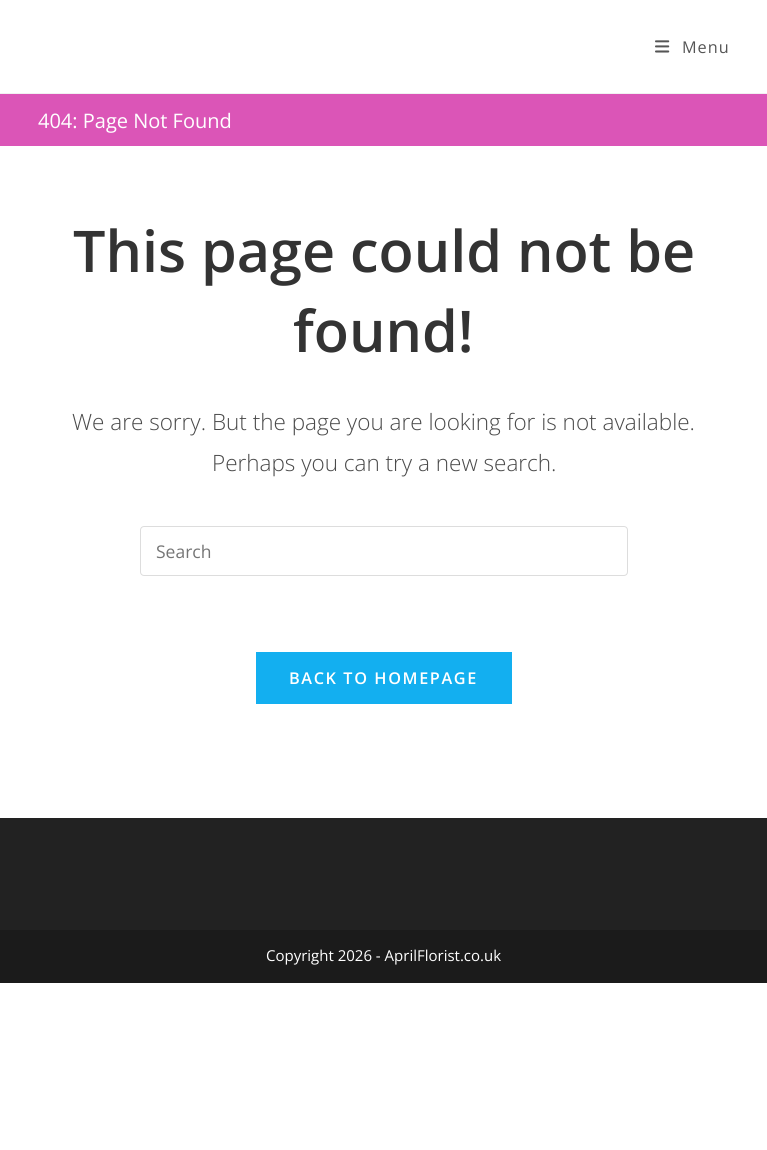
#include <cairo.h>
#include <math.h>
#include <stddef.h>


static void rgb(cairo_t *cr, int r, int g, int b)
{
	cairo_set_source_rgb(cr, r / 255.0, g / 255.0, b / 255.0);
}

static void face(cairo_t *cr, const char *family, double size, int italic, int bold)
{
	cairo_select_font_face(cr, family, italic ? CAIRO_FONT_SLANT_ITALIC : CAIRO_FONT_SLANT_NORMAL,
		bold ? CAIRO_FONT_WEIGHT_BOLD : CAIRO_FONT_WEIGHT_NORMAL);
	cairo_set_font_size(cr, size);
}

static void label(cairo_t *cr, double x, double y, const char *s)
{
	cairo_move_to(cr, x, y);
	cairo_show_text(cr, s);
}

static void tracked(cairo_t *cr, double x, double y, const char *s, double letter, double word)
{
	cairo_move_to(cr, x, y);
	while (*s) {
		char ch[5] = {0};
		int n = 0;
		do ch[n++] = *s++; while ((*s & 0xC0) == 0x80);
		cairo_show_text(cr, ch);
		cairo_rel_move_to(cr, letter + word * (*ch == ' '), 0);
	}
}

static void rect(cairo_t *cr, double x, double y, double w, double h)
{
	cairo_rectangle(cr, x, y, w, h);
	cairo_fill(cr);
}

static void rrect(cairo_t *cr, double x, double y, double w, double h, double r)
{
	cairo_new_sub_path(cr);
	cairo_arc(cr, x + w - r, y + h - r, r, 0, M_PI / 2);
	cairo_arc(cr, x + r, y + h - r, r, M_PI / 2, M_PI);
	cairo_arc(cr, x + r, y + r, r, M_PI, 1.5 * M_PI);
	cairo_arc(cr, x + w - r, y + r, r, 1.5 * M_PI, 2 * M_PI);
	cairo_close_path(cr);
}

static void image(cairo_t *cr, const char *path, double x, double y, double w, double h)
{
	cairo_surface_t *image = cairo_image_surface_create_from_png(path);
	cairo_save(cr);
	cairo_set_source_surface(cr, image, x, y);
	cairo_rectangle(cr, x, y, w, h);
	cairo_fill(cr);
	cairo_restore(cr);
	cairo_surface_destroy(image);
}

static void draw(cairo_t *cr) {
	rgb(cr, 255, 255, 255);
	cairo_paint(cr);
	rgb(cr, 241, 241, 241);
	rect(cr, 0, 93, 767, 1);
	image(cr, "image0.png", 655, 40, 15, 13);
	face(cr, "Open Sans", 16.25, 0, 0);
	rgb(cr, 85, 85, 85);
	tracked(cr, 682, 53, "Menu", 1, 0);
	rgb(cr, 219, 85, 183);
	rect(cr, 0, 94, 767, 52);
	face(cr, "Open Sans", 20, 0, 0);
	rgb(cr, 255, 255, 255);
	label(cr, 38, 128, "404: Page Not Found");
	face(cr, "Open Sans SemiBold", 57.5, 0, 0);
	rgb(cr, 51, 51, 51);
	label(cr, 73, 272, "This page could not be");
	label(cr, 293, 352, "found!");
	face(cr, "Open Sans Light", 22.5, 0, 0);
	rgb(cr, 74, 74, 74);
	label(cr, 72, 430, "We are sorry. But the page you are looking for is not available.");
	label(cr, 212, 471, "Perhaps you can try a new search.");
	rrect(cr, 140.5, 526.5, 487, 49, 3.5);
	rgb(cr, 221, 221, 221);
	cairo_set_line_width(cr, 1);
	cairo_stroke(cr);
	face(cr, "Open Sans", 17.5, 0, 0);
	rgb(cr, 117, 117, 117);
	label(cr, 156, 558, "Search");
	rgb(cr, 19, 175, 240);
	rect(cr, 256, 652, 256, 52);
	face(cr, "Open Sans SemiBold", 16.25, 0, 0);
	rgb(cr, 255, 255, 255);
	tracked(cr, 289, 684, "BACK TO HOMEPAGE", 1.6, 0);
	rgb(cr, 34, 34, 34);
	rect(cr, 0, 818, 767, 112);
	rgb(cr, 27, 27, 27);
	rect(cr, 0, 930, 767, 53);
	face(cr, "Open Sans", 15, 0, 0);
	rgb(cr, 255, 255, 255);
	label(cr, 266, 961, "Copyright 2026 - AprilFlorist.co.uk");
}

int main(void) {
	cairo_surface_t *surface = cairo_image_surface_create(CAIRO_FORMAT_RGB24, 767, 1150);
	cairo_t *cr = cairo_create(surface);
	cairo_font_options_t *options = cairo_font_options_create();
	cairo_font_options_set_hint_metrics(options, CAIRO_HINT_METRICS_OFF);
	cairo_font_options_set_hint_style(options, CAIRO_HINT_STYLE_NONE);
	cairo_set_font_options(cr, options);
	cairo_set_miter_limit(cr, 4);
	draw(cr);
	cairo_surface_write_to_png(surface, "render.png");
	cairo_font_options_destroy(options);
	cairo_destroy(cr);
	cairo_surface_destroy(surface);
	return 0;
}
